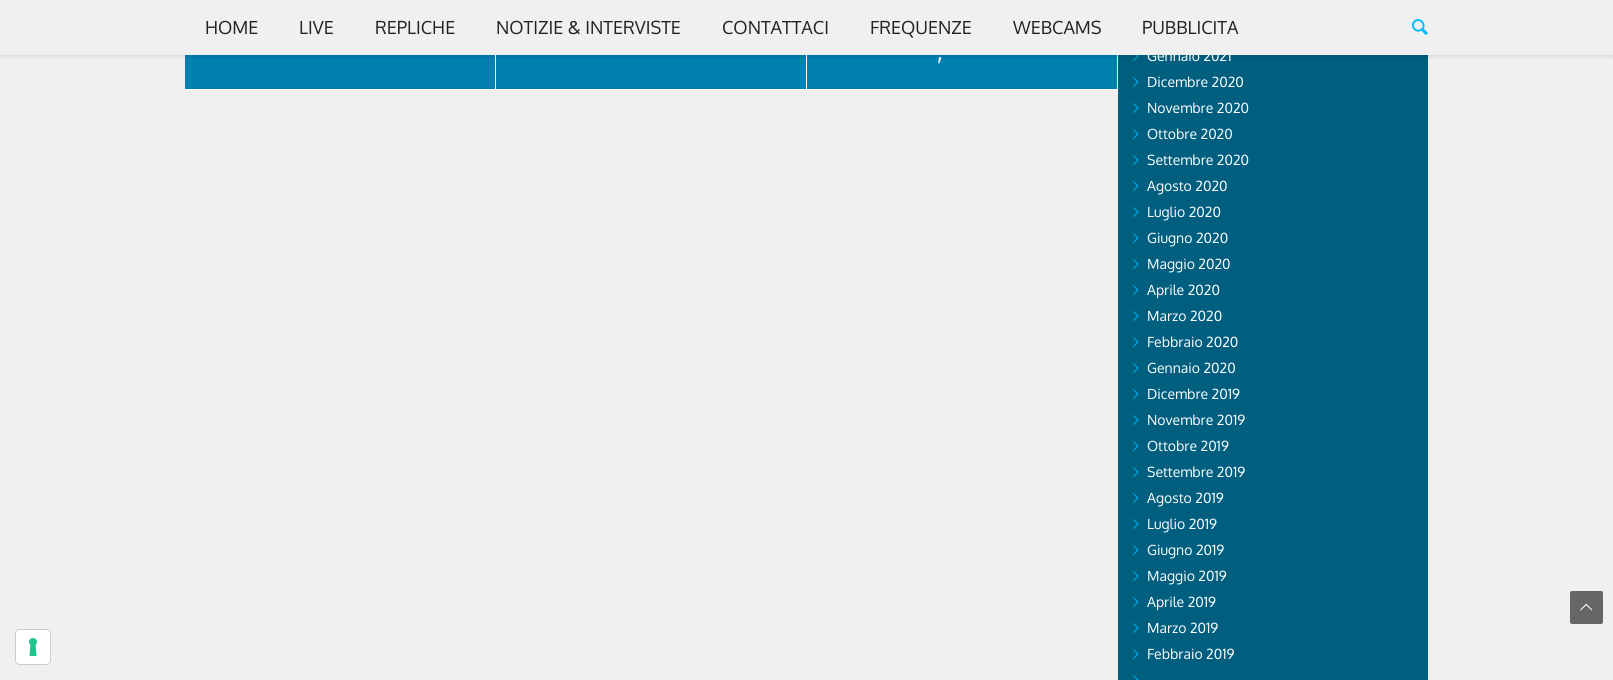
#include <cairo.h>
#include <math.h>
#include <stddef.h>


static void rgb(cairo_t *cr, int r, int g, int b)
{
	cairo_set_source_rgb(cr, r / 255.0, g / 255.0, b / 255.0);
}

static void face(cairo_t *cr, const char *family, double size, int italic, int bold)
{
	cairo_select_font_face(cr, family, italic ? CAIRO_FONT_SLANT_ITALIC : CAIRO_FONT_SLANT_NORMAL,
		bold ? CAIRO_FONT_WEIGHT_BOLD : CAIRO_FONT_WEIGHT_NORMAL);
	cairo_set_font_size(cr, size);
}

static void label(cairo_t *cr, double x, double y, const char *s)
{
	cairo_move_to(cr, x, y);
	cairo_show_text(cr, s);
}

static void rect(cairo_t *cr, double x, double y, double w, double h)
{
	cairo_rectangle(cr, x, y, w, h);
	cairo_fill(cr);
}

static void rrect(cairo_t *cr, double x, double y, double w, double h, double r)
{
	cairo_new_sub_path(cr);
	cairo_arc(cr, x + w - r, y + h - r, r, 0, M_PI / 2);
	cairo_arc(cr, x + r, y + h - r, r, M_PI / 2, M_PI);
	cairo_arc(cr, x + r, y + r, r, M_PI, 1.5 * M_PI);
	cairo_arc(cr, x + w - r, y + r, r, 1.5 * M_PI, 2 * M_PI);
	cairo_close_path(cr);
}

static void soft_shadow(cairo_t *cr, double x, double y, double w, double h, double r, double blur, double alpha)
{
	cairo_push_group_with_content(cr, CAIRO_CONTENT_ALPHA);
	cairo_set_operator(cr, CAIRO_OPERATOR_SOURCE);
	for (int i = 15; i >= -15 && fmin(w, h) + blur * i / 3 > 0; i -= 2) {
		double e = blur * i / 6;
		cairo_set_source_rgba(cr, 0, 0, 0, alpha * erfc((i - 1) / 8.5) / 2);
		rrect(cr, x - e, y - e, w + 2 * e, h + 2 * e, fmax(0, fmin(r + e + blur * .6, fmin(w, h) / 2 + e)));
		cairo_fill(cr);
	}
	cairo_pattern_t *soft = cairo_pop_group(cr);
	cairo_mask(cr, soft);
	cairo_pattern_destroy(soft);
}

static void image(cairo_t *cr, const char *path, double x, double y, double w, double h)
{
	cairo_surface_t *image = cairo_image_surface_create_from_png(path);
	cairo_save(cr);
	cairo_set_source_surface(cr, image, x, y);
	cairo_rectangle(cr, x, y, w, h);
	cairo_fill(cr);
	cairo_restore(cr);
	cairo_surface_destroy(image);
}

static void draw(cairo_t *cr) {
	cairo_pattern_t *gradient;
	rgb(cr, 240, 240, 240);
	cairo_paint(cr);
	rgb(cr, 255, 255, 255);
	rect(cr, 185, 55, 932, 35);
	rgb(cr, 0, 128, 175);
	rect(cr, 185, 55, 310, 23);
	rect(cr, 496, 55, 310, 23);
	rect(cr, 807, 55, 310, 23);
	rgb(cr, 0, 94, 127);
	rect(cr, 1118, 55, 310, 625);
	image(cr, "image1.png", 1133, 55, 6, 6);
	cairo_save(cr);
	cairo_rectangle(cr, 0, 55, 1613, 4);
	cairo_clip(cr);
	rgb(cr, 0, 0, 0);
	soft_shadow(cr, -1, 0, 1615, 57, 0, 2.5, 0.1);
	cairo_restore(cr);
	face(cr, "Oxygen", 14, 0, 0);
	rgb(cr, 255, 255, 255);
	label(cr, 1147, 61, "Gennaio 2021");
	rgb(cr, 240, 240, 240);
	rect(cr, 1148, 50, 83, 5);
	face(cr, "Oxygen", 18, 0, 0);
	rgb(cr, 34, 34, 34);
	label(cr, 205, 34, "HOME");
	label(cr, 299, 34, "LIVE");
	label(cr, 375, 34, "REPLICHE");
	label(cr, 496, 34, "NOTIZIE & INTERVISTE");
	label(cr, 722, 34, "CONTATTACI");
	label(cr, 870, 34, "FREQUENZE");
	label(cr, 1013, 34, "WEBCAMS");
	label(cr, 1142, 34, "PUBBLICITA");
	image(cr, "image0.png", 1412, 19, 16, 16);
	gradient = cairo_pattern_create_linear(340, 67, 340, 89);
	cairo_pattern_add_color_stop_rgba(gradient, 0, 0, 0.502, 0.686, 0);
	cairo_pattern_add_color_stop_rgba(gradient, 0.01, 0, 0.502, 0.686, 0.01);
	cairo_pattern_add_color_stop_rgba(gradient, 0.5, 0, 0.502, 0.686, 1);
	cairo_set_source(cr, gradient);
	cairo_pattern_destroy(gradient);
	rect(cr, 185, 78, 310, 11);
	gradient = cairo_pattern_create_linear(651, 67, 651, 89);
	cairo_pattern_add_color_stop_rgba(gradient, 0, 0, 0.502, 0.686, 0);
	cairo_pattern_add_color_stop_rgba(gradient, 0.01, 0, 0.502, 0.686, 0.01);
	cairo_pattern_add_color_stop_rgba(gradient, 0.5, 0, 0.502, 0.686, 1);
	cairo_set_source(cr, gradient);
	cairo_pattern_destroy(gradient);
	rect(cr, 496, 78, 310, 11);
	face(cr, "Oxygen", 24, 0, 0);
	rgb(cr, 255, 255, 255);
	label(cr, 937, 60, ",");
	gradient = cairo_pattern_create_linear(962, 67, 962, 89);
	cairo_pattern_add_color_stop_rgba(gradient, 0, 0, 0.502, 0.686, 0);
	cairo_pattern_add_color_stop_rgba(gradient, 0.01, 0, 0.502, 0.686, 0.01);
	cairo_pattern_add_color_stop_rgba(gradient, 0.5, 0, 0.502, 0.686, 1);
	cairo_set_source(cr, gradient);
	cairo_pattern_destroy(gradient);
	rect(cr, 807, 78, 310, 11);
	image(cr, "image2.png", 1133, 77, 6, 10);
	face(cr, "Oxygen", 14, 0, 0);
	rgb(cr, 255, 255, 255);
	label(cr, 1147, 87, "Dicembre 2020");
	image(cr, "image2.png", 1133, 103, 6, 10);
	label(cr, 1147, 113, "Novembre 2020");
	image(cr, "image2.png", 1133, 129, 6, 10);
	label(cr, 1147, 139, "Ottobre 2020");
	image(cr, "image2.png", 1133, 155, 6, 10);
	label(cr, 1147, 165, "Settembre 2020");
	image(cr, "image2.png", 1133, 181, 6, 10);
	label(cr, 1147, 191, "Agosto 2020");
	image(cr, "image2.png", 1133, 207, 6, 10);
	label(cr, 1147, 217, "Luglio 2020");
	image(cr, "image2.png", 1133, 233, 6, 10);
	label(cr, 1147, 243, "Giugno 2020");
	image(cr, "image2.png", 1133, 259, 6, 10);
	label(cr, 1147, 269, "Maggio 2020");
	image(cr, "image2.png", 1133, 285, 6, 10);
	label(cr, 1147, 295, "Aprile 2020");
	image(cr, "image2.png", 1133, 311, 6, 10);
	label(cr, 1147, 321, "Marzo 2020");
	image(cr, "image2.png", 1133, 337, 6, 10);
	label(cr, 1147, 347, "Febbraio 2020");
	image(cr, "image2.png", 1133, 363, 6, 10);
	label(cr, 1147, 373, "Gennaio 2020");
	image(cr, "image2.png", 1133, 389, 6, 10);
	label(cr, 1147, 399, "Dicembre 2019");
	image(cr, "image2.png", 1133, 415, 6, 10);
	label(cr, 1147, 425, "Novembre 2019");
	image(cr, "image2.png", 1133, 441, 6, 10);
	label(cr, 1147, 451, "Ottobre 2019");
	image(cr, "image2.png", 1133, 467, 6, 10);
	label(cr, 1147, 477, "Settembre 2019");
	image(cr, "image2.png", 1133, 493, 6, 10);
	label(cr, 1147, 503, "Agosto 2019");
	image(cr, "image2.png", 1133, 519, 6, 10);
	label(cr, 1147, 529, "Luglio 2019");
	image(cr, "image2.png", 1133, 545, 6, 10);
	label(cr, 1147, 555, "Giugno 2019");
	image(cr, "image2.png", 1133, 571, 6, 10);
	label(cr, 1147, 581, "Maggio 2019");
	image(cr, "image2.png", 1133, 597, 6, 10);
	label(cr, 1147, 607, "Aprile 2019");
	image(cr, "image2.png", 1133, 623, 6, 10);
	label(cr, 1147, 633, "Marzo 2019");
	image(cr, "image2.png", 1133, 649, 6, 10);
	label(cr, 1147, 659, "Febbraio 2019");
	image(cr, "image3.png", 1133, 675, 6, 5);
	rgb(cr, 102, 102, 102);
	rrect(cr, 1570, 591, 33, 33, 2);
	cairo_fill(cr);
	image(cr, "image4.png", 1580, 603, 13, 8);
	rrect(cr, 15.5, 629.5, 35, 35, 4.5);
	rgb(cr, 204, 204, 204);
	cairo_set_line_width(cr, 1);
	cairo_stroke(cr);
	rgb(cr, 255, 255, 255);
	rrect(cr, 16, 630, 34, 34, 4);
	cairo_fill(cr);
	image(cr, "image5.png", 29, 638, 8, 18);
}

int main(void) {
	cairo_surface_t *surface = cairo_image_surface_create(CAIRO_FORMAT_RGB24, 1613, 680);
	cairo_t *cr = cairo_create(surface);
	cairo_font_options_t *options = cairo_font_options_create();
	cairo_font_options_set_hint_metrics(options, CAIRO_HINT_METRICS_OFF);
	cairo_font_options_set_hint_style(options, CAIRO_HINT_STYLE_NONE);
	cairo_set_font_options(cr, options);
	cairo_set_miter_limit(cr, 4);
	draw(cr);
	cairo_surface_write_to_png(surface, "render.png");
	cairo_font_options_destroy(options);
	cairo_destroy(cr);
	cairo_surface_destroy(surface);
	return 0;
}
